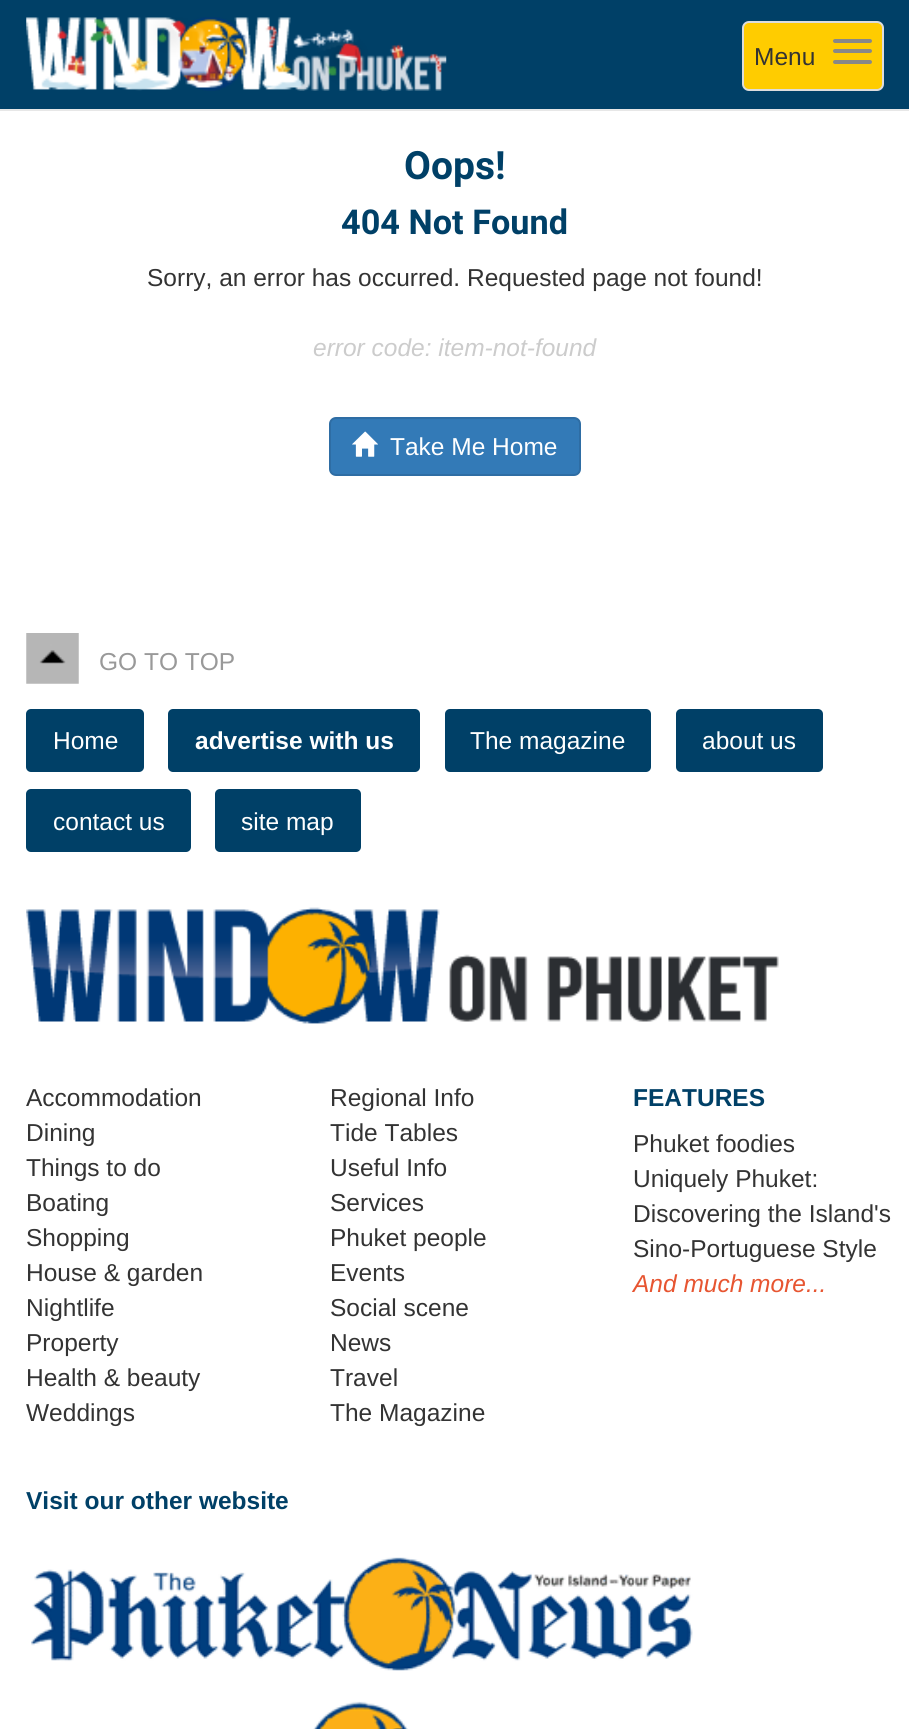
#include <cairo.h>
#include <math.h>
#include <stddef.h>


static void rgb(cairo_t *cr, int r, int g, int b)
{
	cairo_set_source_rgb(cr, r / 255.0, g / 255.0, b / 255.0);
}

static void face(cairo_t *cr, const char *family, double size, int italic, int bold)
{
	cairo_select_font_face(cr, family, italic ? CAIRO_FONT_SLANT_ITALIC : CAIRO_FONT_SLANT_NORMAL,
		bold ? CAIRO_FONT_WEIGHT_BOLD : CAIRO_FONT_WEIGHT_NORMAL);
	cairo_set_font_size(cr, size);
}

static void label(cairo_t *cr, double x, double y, const char *s)
{
	cairo_move_to(cr, x, y);
	cairo_show_text(cr, s);
}

static void rect(cairo_t *cr, double x, double y, double w, double h)
{
	cairo_rectangle(cr, x, y, w, h);
	cairo_fill(cr);
}

static void rrect(cairo_t *cr, double x, double y, double w, double h, double r)
{
	cairo_new_sub_path(cr);
	cairo_arc(cr, x + w - r, y + h - r, r, 0, M_PI / 2);
	cairo_arc(cr, x + r, y + h - r, r, M_PI / 2, M_PI);
	cairo_arc(cr, x + r, y + r, r, M_PI, 1.5 * M_PI);
	cairo_arc(cr, x + w - r, y + r, r, 1.5 * M_PI, 2 * M_PI);
	cairo_close_path(cr);
}

static void image(cairo_t *cr, const char *path, double x, double y, double w, double h)
{
	cairo_surface_t *image = cairo_image_surface_create_from_png(path);
	cairo_save(cr);
	cairo_set_source_surface(cr, image, x, y);
	cairo_rectangle(cr, x, y, w, h);
	cairo_fill(cr);
	cairo_restore(cr);
	cairo_surface_destroy(image);
}

static void draw(cairo_t *cr) {
	rgb(cr, 255, 255, 255);
	cairo_paint(cr);
	rgb(cr, 0, 64, 103);
	rect(cr, 0, 0, 909, 109);
	rgb(cr, 231, 231, 231);
	rect(cr, 0, 109, 909, 2);
	image(cr, "image0.png", 26, 17, 421, 74);
	rgb(cr, 255, 204, 0);
	rrect(cr, 743, 22, 140, 68, 6);
	cairo_fill_preserve(cr);
	rgb(cr, 221, 221, 221);
	cairo_stroke(cr);
	face(cr, "Liberation Sans", 24.5, 0, 0);
	rgb(cr, 51, 51, 51);
	label(cr, 754, 65, "Menu");
	rgb(cr, 136, 136, 136);
	rrect(cr, 833, 39, 39, 4, 2);
	cairo_fill(cr);
	rrect(cr, 833, 49, 39, 4, 2);
	cairo_fill(cr);
	rrect(cr, 833, 60, 39, 4, 2);
	cairo_fill(cr);
	face(cr, "Roboto", 39, 0, 1);
	rgb(cr, 0, 64, 103);
	label(cr, 404, 179, "Oops!");
	face(cr, "Roboto", 34.25, 0, 1);
	label(cr, 341, 234, "404 Not Found");
	face(cr, "Liberation Sans", 24.5, 0, 0);
	rgb(cr, 51, 51, 51);
	label(cr, 147, 286, "Sorry, an error has occurred. Requested page not found!");
	face(cr, "Liberation Sans", 24.5, 1, 0);
	rgb(cr, 204, 204, 204);
	label(cr, 313, 356, "error code: item-not-found");
	rgb(cr, 51, 122, 183);
	rrect(cr, 330, 418, 250, 57, 6);
	cairo_fill_preserve(cr);
	rgb(cr, 46, 109, 164);
	cairo_stroke(cr);
	image(cr, "image1.png", 352, 431, 26, 26);
	face(cr, "Liberation Sans", 24.5, 0, 0);
	rgb(cr, 255, 255, 255);
	label(cr, 390, 455, "Take Me Home");
	image(cr, "image2.png", 26, 633, 53, 51);
	rgb(cr, 153, 153, 153);
	label(cr, 99, 670, "GO TO TOP");
	rgb(cr, 0, 64, 103);
	rrect(cr, 26, 709, 118, 63, 5);
	cairo_fill(cr);
	rgb(cr, 255, 255, 255);
	label(cr, 53, 749, "Home");
	rgb(cr, 0, 64, 103);
	rrect(cr, 168, 709, 252, 63, 5);
	cairo_fill(cr);
	face(cr, "Liberation Sans", 24.5, 0, 1);
	rgb(cr, 255, 255, 255);
	label(cr, 195, 749, "advertise with us");
	rgb(cr, 0, 64, 103);
	rrect(cr, 445, 709, 206, 63, 5);
	cairo_fill(cr);
	face(cr, "Liberation Sans", 24.5, 0, 0);
	rgb(cr, 255, 255, 255);
	label(cr, 470, 749, "The magazine");
	rgb(cr, 0, 64, 103);
	rrect(cr, 676, 709, 147, 63, 5);
	cairo_fill(cr);
	rgb(cr, 255, 255, 255);
	label(cr, 702, 749, "about us");
	rgb(cr, 0, 64, 103);
	rrect(cr, 26, 789, 165, 63, 5);
	cairo_fill(cr);
	rgb(cr, 255, 255, 255);
	label(cr, 53, 830, "contact us");
	rgb(cr, 0, 64, 103);
	rrect(cr, 215, 789, 146, 63, 5);
	cairo_fill(cr);
	rgb(cr, 255, 255, 255);
	label(cr, 241, 830, "site map");
	image(cr, "image3.png", 26, 907, 753, 117);
	rgb(cr, 51, 51, 51);
	label(cr, 26, 1106, "Accommodation");
	label(cr, 26, 1141, "Dining");
	label(cr, 26, 1176, "Things to do");
	label(cr, 26, 1211, "Boating");
	label(cr, 26, 1246, "Shopping");
	label(cr, 26, 1281, "House & garden");
	label(cr, 26, 1316, "Nightlife");
	label(cr, 26, 1351, "Property");
	label(cr, 26, 1386, "Health & beauty");
	label(cr, 26, 1421, "Weddings");
	label(cr, 330, 1106, "Regional Info");
	label(cr, 330, 1141, "Tide Tables");
	label(cr, 330, 1176, "Useful Info");
	label(cr, 330, 1211, "Services");
	label(cr, 330, 1246, "Phuket people");
	label(cr, 330, 1281, "Events");
	label(cr, 330, 1316, "Social scene");
	label(cr, 330, 1351, "News");
	label(cr, 330, 1386, "Travel");
	label(cr, 330, 1421, "The Magazine");
	face(cr, "Liberation Sans", 24.5, 0, 1);
	rgb(cr, 0, 64, 103);
	label(cr, 633, 1106, "FEATURES");
	face(cr, "Liberation Sans", 24.5, 0, 0);
	rgb(cr, 51, 51, 51);
	label(cr, 633, 1152, "Phuket foodies");
	label(cr, 633, 1187, "Uniquely Phuket:");
	label(cr, 633, 1222, "Discovering the Island's");
	label(cr, 633, 1257, "Sino-Portuguese Style");
	face(cr, "Liberation Sans", 24.5, 1, 0);
	rgb(cr, 231, 85, 49);
	label(cr, 633, 1292, "And much more...");
	face(cr, "Liberation Sans", 24.5, 0, 1);
	rgb(cr, 0, 64, 103);
	label(cr, 26, 1509, "Visit our other website");
	image(cr, "image4.png", 31, 1557, 662, 114);
	image(cr, "image5.png", 313, 1701, 95, 28);
}

int main(void) {
	cairo_surface_t *surface = cairo_image_surface_create(CAIRO_FORMAT_RGB24, 909, 1729);
	cairo_t *cr = cairo_create(surface);
	cairo_font_options_t *options = cairo_font_options_create();
	cairo_font_options_set_hint_metrics(options, CAIRO_HINT_METRICS_OFF);
	cairo_font_options_set_hint_style(options, CAIRO_HINT_STYLE_NONE);
	cairo_set_font_options(cr, options);
	cairo_set_miter_limit(cr, 4);
	draw(cr);
	cairo_surface_write_to_png(surface, "render.png");
	cairo_font_options_destroy(options);
	cairo_destroy(cr);
	cairo_surface_destroy(surface);
	return 0;
}
